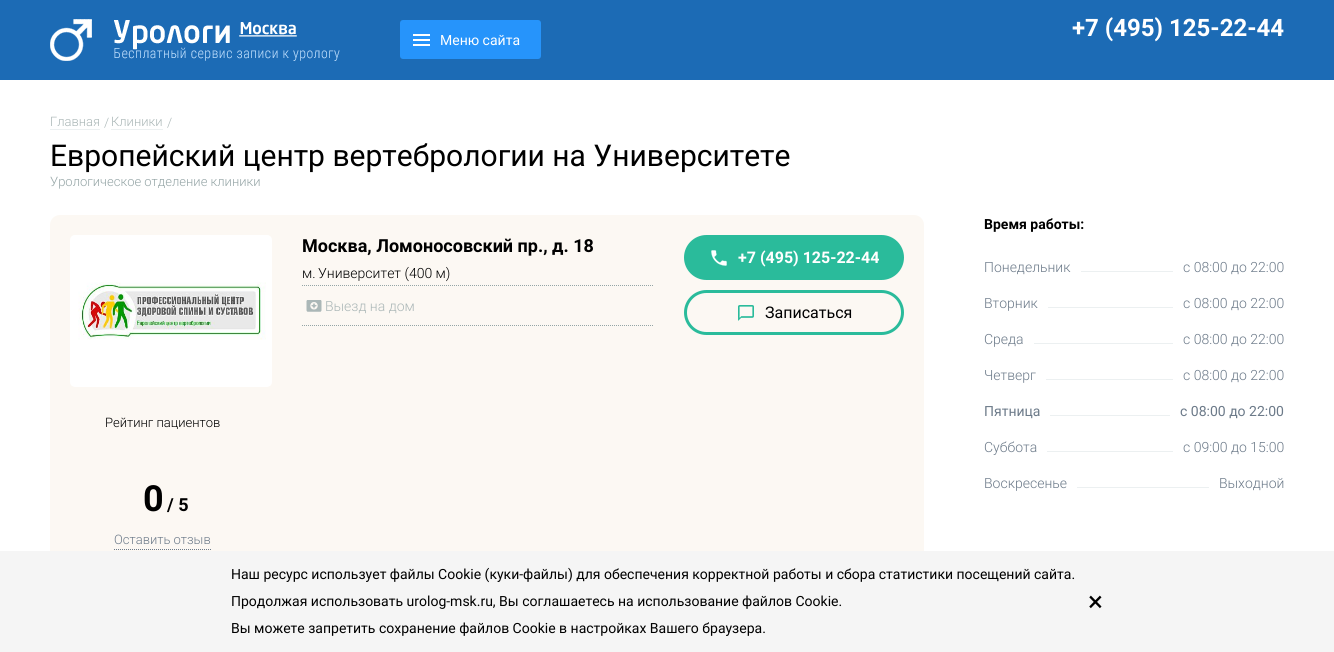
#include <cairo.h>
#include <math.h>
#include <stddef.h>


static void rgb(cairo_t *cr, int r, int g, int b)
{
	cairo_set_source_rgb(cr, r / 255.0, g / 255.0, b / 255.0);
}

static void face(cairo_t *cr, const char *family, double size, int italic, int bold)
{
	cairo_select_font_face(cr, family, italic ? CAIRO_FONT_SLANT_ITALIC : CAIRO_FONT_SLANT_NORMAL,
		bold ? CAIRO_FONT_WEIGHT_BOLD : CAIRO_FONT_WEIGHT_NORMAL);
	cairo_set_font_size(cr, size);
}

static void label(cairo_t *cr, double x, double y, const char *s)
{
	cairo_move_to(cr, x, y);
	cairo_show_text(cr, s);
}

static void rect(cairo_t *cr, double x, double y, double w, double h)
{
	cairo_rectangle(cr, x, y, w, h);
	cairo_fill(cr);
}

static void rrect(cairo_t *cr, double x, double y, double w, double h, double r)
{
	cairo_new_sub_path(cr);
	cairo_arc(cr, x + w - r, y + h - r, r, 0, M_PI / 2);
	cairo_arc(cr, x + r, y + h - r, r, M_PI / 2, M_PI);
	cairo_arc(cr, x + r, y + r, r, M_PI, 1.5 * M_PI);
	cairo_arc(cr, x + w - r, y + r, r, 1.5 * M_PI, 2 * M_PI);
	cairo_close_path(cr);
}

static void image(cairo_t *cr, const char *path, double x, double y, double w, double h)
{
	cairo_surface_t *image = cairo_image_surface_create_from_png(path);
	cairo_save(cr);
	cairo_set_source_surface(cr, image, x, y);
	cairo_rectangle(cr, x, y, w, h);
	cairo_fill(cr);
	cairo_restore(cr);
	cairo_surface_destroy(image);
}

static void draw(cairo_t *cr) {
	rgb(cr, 255, 255, 255);
	cairo_paint(cr);
	rgb(cr, 28, 107, 181);
	rect(cr, 0, 0, 1334, 80);
	rgb(cr, 38, 148, 251);
	rrect(cr, 400, 20, 141, 39, 3);
	cairo_fill(cr);
	image(cr, "image0.png", 413, 34, 17, 12);
	face(cr, "Roboto", 14, 0, 0);
	rgb(cr, 255, 255, 255);
	label(cr, 440, 45, "Меню сайта");
	image(cr, "image1.png", 50, 19, 290, 42);
	face(cr, "Roboto", 24, 0, 1);
	label(cr, 1072, 36, "+7 (495) 125-22-44");
	face(cr, "Roboto Light", 13, 0, 0);
	rgb(cr, 171, 183, 183);
	label(cr, 50, 126, "Главная");
	rgb(cr, 236, 240, 241);
	rect(cr, 50, 129, 50, 1);
	rgb(cr, 171, 183, 183);
	label(cr, 104, 127, "/");
	label(cr, 111, 126, "Клиники");
	rgb(cr, 236, 240, 241);
	rect(cr, 111, 129, 52, 1);
	rgb(cr, 171, 183, 183);
	label(cr, 167, 127, "/");
	face(cr, "Roboto", 30, 0, 0);
	rgb(cr, 0, 0, 0);
	label(cr, 50, 166, "Европейский центр вертебрологии на Университете");
	face(cr, "Roboto Light", 13, 0, 0);
	rgb(cr, 149, 165, 166);
	label(cr, 50, 186, "Урологическое отделение клиники");
	rgb(cr, 252, 248, 243);
	rrect(cr, 50, 215, 874, 385, 10);
	cairo_fill(cr);
	face(cr, "Roboto", 18, 0, 1);
	rgb(cr, 0, 0, 0);
	label(cr, 302, 252, "Москва, Ломоносовский пр., д. 18");
	face(cr, "Roboto Light", 14, 0, 0);
	label(cr, 302, 278, "м.");
	label(cr, 318, 278, "Университет (400 м)");
	cairo_new_path(cr);
	cairo_move_to(cr, 302, 285.5);
	cairo_line_to(cr, 654, 285.5);
	rgb(cr, 148, 165, 166);
	cairo_set_line_width(cr, 1);
	cairo_set_dash(cr, (double[]){1, 1}, 2, 0);
	cairo_stroke(cr);
	cairo_new_path(cr);
	cairo_move_to(cr, 302, 325.5);
	cairo_line_to(cr, 654, 325.5);
	cairo_stroke(cr);
	image(cr, "image2.png", 306, 300, 16, 12);
	rgb(cr, 171, 183, 183);
	label(cr, 325, 311, "Выезд на дом");
	rgb(cr, 42, 187, 155);
	rrect(cr, 685.5, 236.5, 217, 42, 21);
	cairo_fill_preserve(cr);
	cairo_set_line_width(cr, 3);
	cairo_set_dash(cr, NULL, 0, 0);
	cairo_stroke(cr);
	image(cr, "image3.png", 711, 250, 16, 16);
	face(cr, "Roboto", 16, 0, 1);
	rgb(cr, 255, 255, 255);
	label(cr, 738, 263, "+7 (495) 125-22-44");
	rrect(cr, 685.5, 291.5, 217, 42, 21);
	rgb(cr, 42, 187, 155);
	cairo_stroke(cr);
	image(cr, "image4.png", 738, 305, 16, 16);
	face(cr, "Roboto", 16, 0, 0);
	rgb(cr, 0, 0, 0);
	label(cr, 765, 318, "Записаться");
	image(cr, "image5.png", 70, 235, 202, 152);
	face(cr, "Roboto Light", 13, 0, 0);
	label(cr, 105, 427, "Рейтинг пациентов");
	face(cr, "Roboto", 36, 0, 1);
	label(cr, 143, 511, "0");
	face(cr, "Roboto", 18, 0, 1);
	label(cr, 167, 511, "/ 5");
	cairo_new_path(cr);
	cairo_move_to(cr, 114, 549.5);
	cairo_line_to(cr, 211, 549.5);
	rgb(cr, 108, 122, 137);
	cairo_set_line_width(cr, 1);
	cairo_set_dash(cr, (double[]){1, 1}, 2, 0);
	cairo_stroke(cr);
	face(cr, "Roboto Light", 13, 0, 0);
	label(cr, 114, 544, "Оставить отзыв");
	face(cr, "Roboto", 14, 0, 1);
	rgb(cr, 0, 0, 0);
	label(cr, 984, 229, "Время работы:");
	rgb(cr, 236, 240, 241);
	rect(cr, 1081, 271, 92, 1);
	face(cr, "Roboto Light", 14, 0, 0);
	rgb(cr, 108, 122, 137);
	label(cr, 984, 272, "Понедельник");
	label(cr, 1183, 272, "c 08:00 до 22:00");
	rgb(cr, 236, 240, 241);
	rect(cr, 1048, 307, 125, 1);
	rgb(cr, 108, 122, 137);
	label(cr, 984, 308, "Вторник");
	label(cr, 1183, 308, "c 08:00 до 22:00");
	rgb(cr, 236, 240, 241);
	rect(cr, 1034, 343, 139, 1);
	rgb(cr, 108, 122, 137);
	label(cr, 984, 344, "Среда");
	label(cr, 1183, 344, "c 08:00 до 22:00");
	rgb(cr, 236, 240, 241);
	rect(cr, 1046, 379, 127, 1);
	rgb(cr, 108, 122, 137);
	label(cr, 984, 380, "Четверг");
	label(cr, 1183, 380, "c 08:00 до 22:00");
	rgb(cr, 236, 240, 241);
	rect(cr, 1050, 415, 120, 1);
	face(cr, "Roboto", 14, 0, 0);
	rgb(cr, 108, 122, 137);
	label(cr, 984, 416, "Пятница");
	label(cr, 1180, 416, "c 08:00 до 22:00");
	rgb(cr, 236, 240, 241);
	rect(cr, 1047, 451, 126, 1);
	face(cr, "Roboto Light", 14, 0, 0);
	rgb(cr, 108, 122, 137);
	label(cr, 984, 452, "Суббота");
	label(cr, 1183, 452, "c 09:00 до 15:00");
	rgb(cr, 236, 240, 241);
	rect(cr, 1077, 487, 132, 1);
	rgb(cr, 108, 122, 137);
	label(cr, 984, 488, "Воскресенье");
	label(cr, 1219, 488, "Выходной");
	rgb(cr, 245, 245, 245);
	rect(cr, 0, 551, 1334, 101);
	face(cr, "Roboto", 14, 0, 0);
	rgb(cr, 0, 0, 0);
	label(cr, 231, 579, "Наш ресурс использует файлы Cookie (куки-файлы) для обеспечения корректной работы и сбора статистики посещений сайта.");
	label(cr, 231, 606, "Продолжая использовать urolog-msk.ru, Вы соглашаетесь на использование файлов Cookie.");
	label(cr, 231, 633, "Вы можете запретить сохранение файлов Cookie в настройках Вашего браузера.");
	face(cr, "Roboto", 28, 0, 0);
	label(cr, 1088, 611, "×");
}

int main(void) {
	cairo_surface_t *surface = cairo_image_surface_create(CAIRO_FORMAT_RGB24, 1334, 652);
	cairo_t *cr = cairo_create(surface);
	cairo_font_options_t *options = cairo_font_options_create();
	cairo_font_options_set_hint_metrics(options, CAIRO_HINT_METRICS_OFF);
	cairo_font_options_set_hint_style(options, CAIRO_HINT_STYLE_NONE);
	cairo_set_font_options(cr, options);
	cairo_set_miter_limit(cr, 4);
	draw(cr);
	cairo_surface_write_to_png(surface, "render.png");
	cairo_font_options_destroy(options);
	cairo_destroy(cr);
	cairo_surface_destroy(surface);
	return 0;
}
